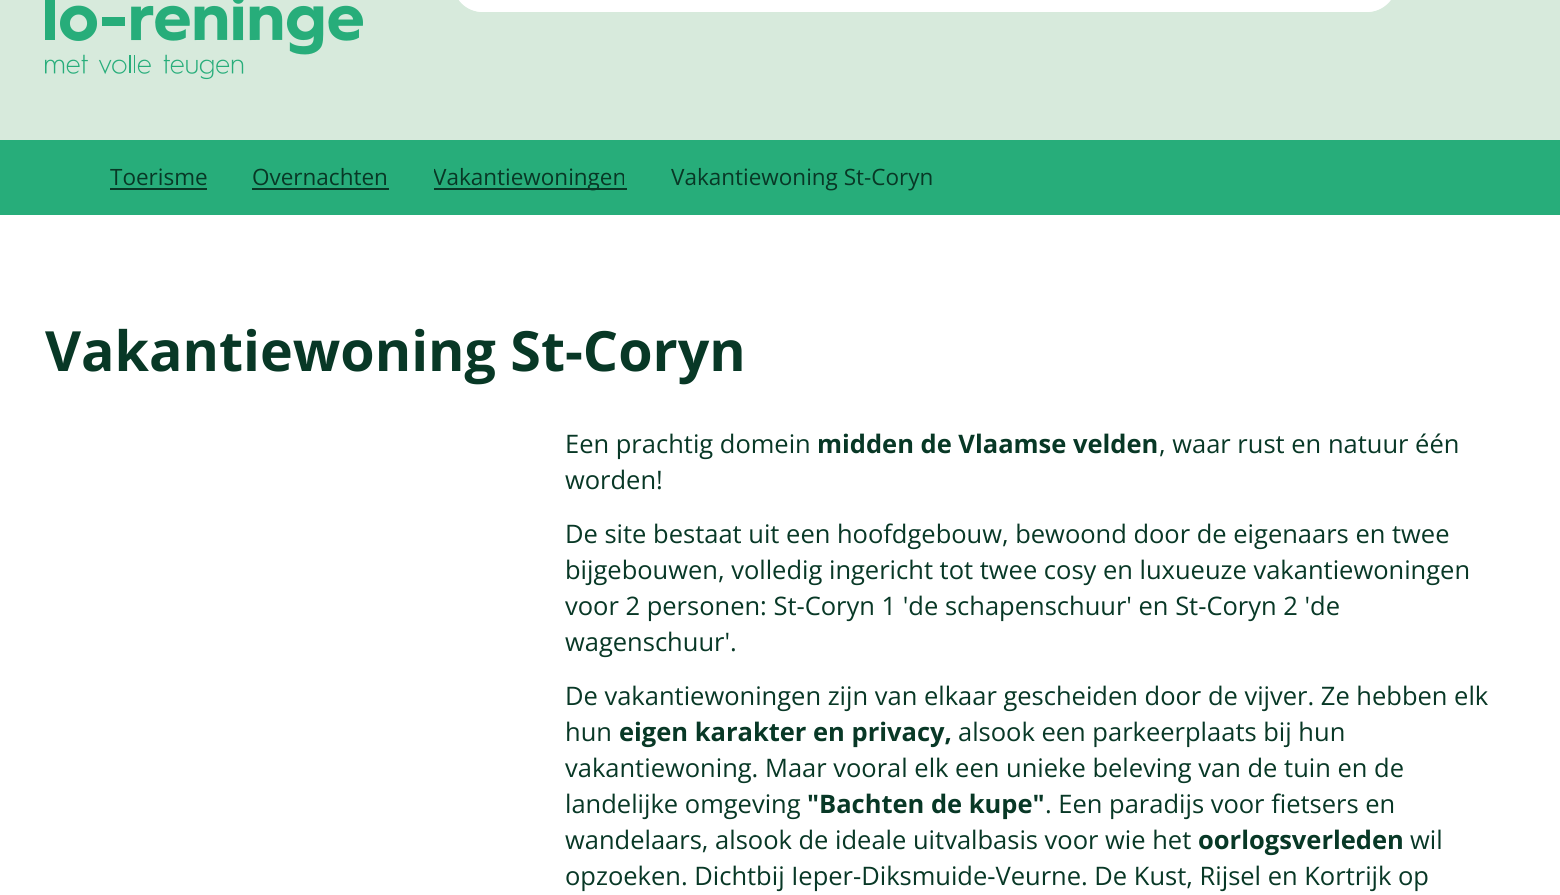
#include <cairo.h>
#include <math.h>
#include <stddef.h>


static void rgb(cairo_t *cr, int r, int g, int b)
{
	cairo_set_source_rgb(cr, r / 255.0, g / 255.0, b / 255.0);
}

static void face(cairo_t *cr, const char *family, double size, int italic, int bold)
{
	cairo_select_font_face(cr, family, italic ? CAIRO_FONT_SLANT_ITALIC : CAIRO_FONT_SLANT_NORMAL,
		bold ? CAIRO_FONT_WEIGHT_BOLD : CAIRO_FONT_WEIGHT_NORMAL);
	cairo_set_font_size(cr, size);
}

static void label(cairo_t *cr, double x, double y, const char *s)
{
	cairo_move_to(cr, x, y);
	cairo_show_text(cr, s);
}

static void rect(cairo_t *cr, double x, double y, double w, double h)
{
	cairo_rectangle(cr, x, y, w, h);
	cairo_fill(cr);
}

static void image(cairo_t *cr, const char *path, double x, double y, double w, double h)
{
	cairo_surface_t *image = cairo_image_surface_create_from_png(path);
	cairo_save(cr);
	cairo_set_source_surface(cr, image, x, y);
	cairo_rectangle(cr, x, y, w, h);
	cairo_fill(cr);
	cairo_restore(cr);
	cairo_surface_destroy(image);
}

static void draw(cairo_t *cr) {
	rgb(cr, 255, 255, 255);
	cairo_paint(cr);
	rgb(cr, 215, 234, 220);
	rect(cr, 0, 0, 1560, 140);
	rgb(cr, 255, 255, 255);
	cairo_new_path(cr);
	cairo_move_to(cr, 483, -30);
	cairo_line_to(cr, 1314, -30);
	cairo_line_to(cr, 1314, 12);
	cairo_line_to(cr, 483, 12);
	cairo_curve_to(cr, 466.5, 12, 453, -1.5, 453, -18);
	cairo_line_to(cr, 453, 0);
	cairo_curve_to(cr, 453, -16.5, 466.5, -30, 483, -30);
	cairo_close_path(cr);
	cairo_fill(cr);
	cairo_set_fill_rule(cr, CAIRO_FILL_RULE_EVEN_ODD);
	cairo_new_path(cr);
	cairo_move_to(cr, 483, -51);
	cairo_line_to(cr, 1314, -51);
	cairo_line_to(cr, 1314, 12);
	cairo_line_to(cr, 483, 12);
	cairo_curve_to(cr, 466, 12, 453, -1, 453, -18);
	cairo_line_to(cr, 453, -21);
	cairo_curve_to(cr, 453, -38, 466, -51, 483, -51);
	cairo_close_path(cr);
	cairo_move_to(cr, 483, -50);
	cairo_line_to(cr, 1314, -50);
	cairo_line_to(cr, 1314, 10);
	cairo_line_to(cr, 483, 10);
	cairo_curve_to(cr, 445, 10, 445, -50, 483, -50);
	cairo_close_path(cr);
	cairo_fill(cr);
	cairo_new_path(cr);
	cairo_move_to(cr, 1314, -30);
	cairo_line_to(cr, 1367, -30);
	cairo_curve_to(cr, 1383.5, -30, 1397, -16.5, 1397, 0);
	cairo_line_to(cr, 1397, -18);
	cairo_curve_to(cr, 1397, -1.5, 1383.5, 12, 1367, 12);
	cairo_line_to(cr, 1314, 12);
	cairo_close_path(cr);
	cairo_fill(cr);
	cairo_new_path(cr);
	cairo_move_to(cr, 1314, -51);
	cairo_line_to(cr, 1366, -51);
	cairo_curve_to(cr, 1383, -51, 1396, -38, 1396, -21);
	cairo_line_to(cr, 1396, -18);
	cairo_curve_to(cr, 1396, -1, 1383, 12, 1366, 12);
	cairo_line_to(cr, 1314, 12);
	cairo_close_path(cr);
	cairo_move_to(cr, 1314, -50);
	cairo_line_to(cr, 1366, -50);
	cairo_curve_to(cr, 1382, -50, 1395, -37, 1395, -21);
	cairo_line_to(cr, 1395, -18);
	cairo_curve_to(cr, 1395, -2, 1382, 10, 1366, 10);
	cairo_line_to(cr, 1314, 10);
	cairo_close_path(cr);
	cairo_fill(cr);
	image(cr, "image0.png", 45, 0, 318, 80);
	rgb(cr, 39, 173, 122);
	rect(cr, 0, 140, 1560, 75);
	face(cr, "Open Sans", 22.5, 0, 0);
	rgb(cr, 8, 56, 38);
	label(cr, 110, 185, "Toerisme");
	rect(cr, 110, 188, 97, 2);
	label(cr, 252, 185, "Overnachten");
	rect(cr, 252, 188, 137, 2);
	rect(cr, 434, 188, 193, 2);
	cairo_save(cr);
	cairo_set_fill_rule(cr, CAIRO_FILL_RULE_WINDING);
	cairo_rectangle(cr, 434, 162, 238, 32);
	cairo_clip(cr);
	label(cr, 433, 185, "Vakantiewoningen");
	cairo_restore(cr);
	label(cr, 671, 185, "Vakantiewoning St-Coryn");
	face(cr, "Open Sans", 55.5, 0, 1);
	label(cr, 45, 371, "Vakantiewoning St-Coryn");
	face(cr, "Open Sans", 25.5, 0, 0);
	label(cr, 565, 453, "Een prachtig domein");
	face(cr, "Open Sans", 25.5, 0, 1);
	label(cr, 817, 453, "midden de Vlaamse velden");
	face(cr, "Open Sans", 25.5, 0, 0);
	label(cr, 1159, 453, ", waar rust en natuur één");
	label(cr, 565, 489, "worden!");
	label(cr, 565, 543, "De site bestaat uit een hoofdgebouw, bewoond door de eigenaars en twee");
	label(cr, 565, 579, "bijgebouwen, volledig ingericht tot twee cosy en luxueuze vakantiewoningen");
	label(cr, 565, 615, "voor 2 personen: St-Coryn 1 'de schapenschuur' en St-Coryn 2 'de");
	label(cr, 565, 651, "wagenschuur'.");
	label(cr, 565, 705, "De vakantiewoningen zijn van elkaar gescheiden door de vijver. Ze hebben elk");
	label(cr, 565, 741, "hun");
	face(cr, "Open Sans", 25.5, 0, 1);
	label(cr, 619, 741, "eigen karakter en privacy,");
	face(cr, "Open Sans", 25.5, 0, 0);
	label(cr, 958, 741, "alsook een parkeerplaats bij hun");
	label(cr, 565, 777, "vakantiewoning. Maar vooral elk een unieke beleving van de tuin en de");
	label(cr, 565, 813, "landelijke omgeving");
	face(cr, "Open Sans", 25.5, 0, 1);
	label(cr, 807, 813, "\"Bachten de kupe\"");
	face(cr, "Open Sans", 25.5, 0, 0);
	label(cr, 1045, 813, ". Een paradijs voor fietsers en");
	label(cr, 565, 849, "wandelaars, alsook de ideale uitvalbasis voor wie het");
	face(cr, "Open Sans", 25.5, 0, 1);
	label(cr, 1198, 849, "oorlogsverleden");
	face(cr, "Open Sans", 25.5, 0, 0);
	label(cr, 1410, 849, "wil");
	label(cr, 565, 885, "opzoeken. Dichtbij Ieper-Diksmuide-Veurne. De Kust, Rijsel en Kortrijk op");
}

int main(void) {
	cairo_surface_t *surface = cairo_image_surface_create(CAIRO_FORMAT_RGB24, 1560, 895);
	cairo_t *cr = cairo_create(surface);
	cairo_font_options_t *options = cairo_font_options_create();
	cairo_font_options_set_hint_metrics(options, CAIRO_HINT_METRICS_OFF);
	cairo_font_options_set_hint_style(options, CAIRO_HINT_STYLE_NONE);
	cairo_set_font_options(cr, options);
	cairo_set_miter_limit(cr, 4);
	draw(cr);
	cairo_surface_write_to_png(surface, "render.png");
	cairo_font_options_destroy(options);
	cairo_destroy(cr);
	cairo_surface_destroy(surface);
	return 0;
}
